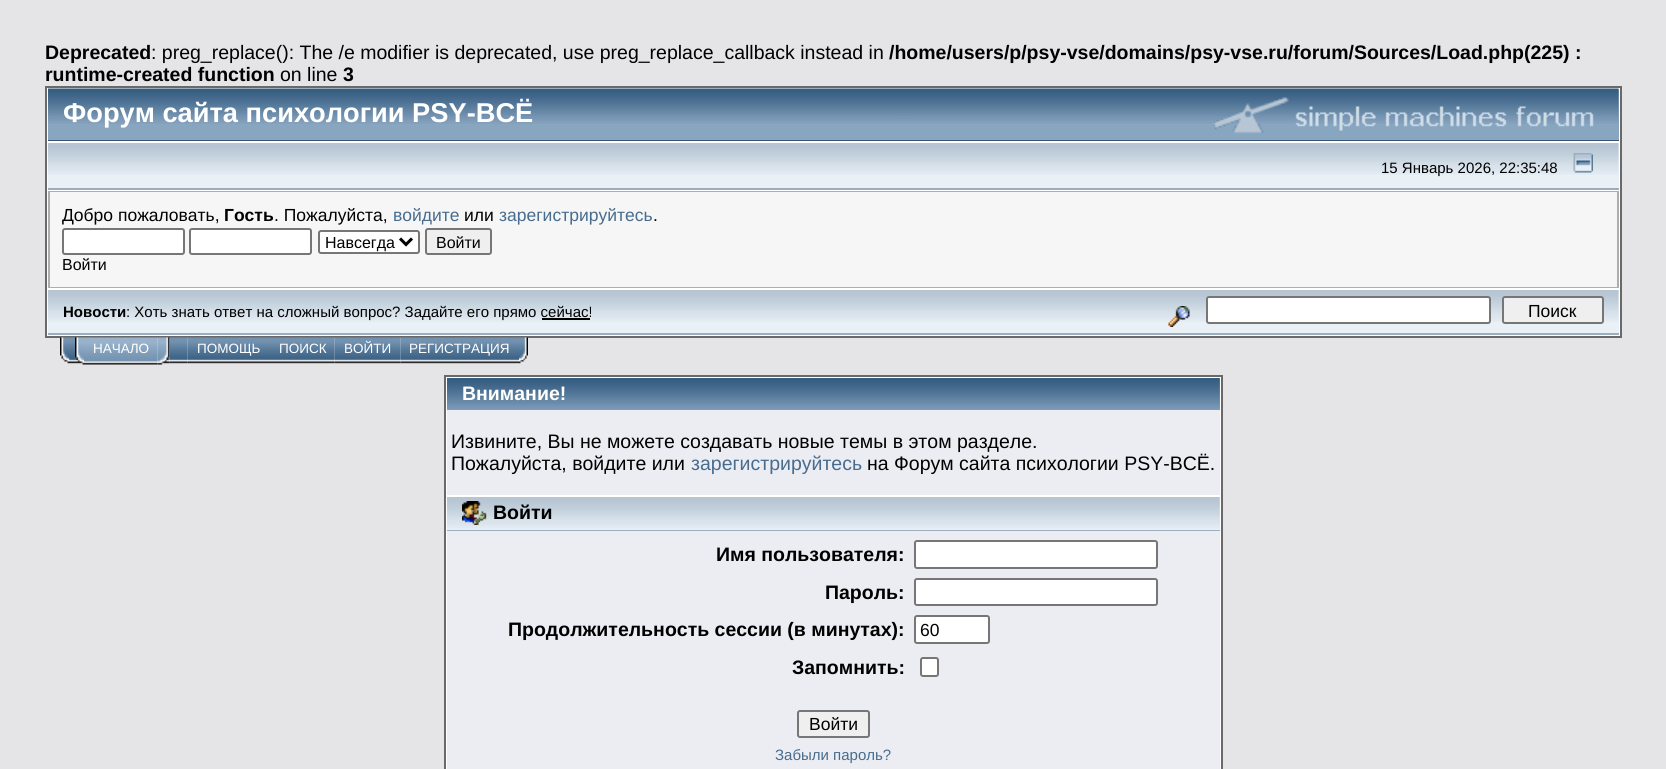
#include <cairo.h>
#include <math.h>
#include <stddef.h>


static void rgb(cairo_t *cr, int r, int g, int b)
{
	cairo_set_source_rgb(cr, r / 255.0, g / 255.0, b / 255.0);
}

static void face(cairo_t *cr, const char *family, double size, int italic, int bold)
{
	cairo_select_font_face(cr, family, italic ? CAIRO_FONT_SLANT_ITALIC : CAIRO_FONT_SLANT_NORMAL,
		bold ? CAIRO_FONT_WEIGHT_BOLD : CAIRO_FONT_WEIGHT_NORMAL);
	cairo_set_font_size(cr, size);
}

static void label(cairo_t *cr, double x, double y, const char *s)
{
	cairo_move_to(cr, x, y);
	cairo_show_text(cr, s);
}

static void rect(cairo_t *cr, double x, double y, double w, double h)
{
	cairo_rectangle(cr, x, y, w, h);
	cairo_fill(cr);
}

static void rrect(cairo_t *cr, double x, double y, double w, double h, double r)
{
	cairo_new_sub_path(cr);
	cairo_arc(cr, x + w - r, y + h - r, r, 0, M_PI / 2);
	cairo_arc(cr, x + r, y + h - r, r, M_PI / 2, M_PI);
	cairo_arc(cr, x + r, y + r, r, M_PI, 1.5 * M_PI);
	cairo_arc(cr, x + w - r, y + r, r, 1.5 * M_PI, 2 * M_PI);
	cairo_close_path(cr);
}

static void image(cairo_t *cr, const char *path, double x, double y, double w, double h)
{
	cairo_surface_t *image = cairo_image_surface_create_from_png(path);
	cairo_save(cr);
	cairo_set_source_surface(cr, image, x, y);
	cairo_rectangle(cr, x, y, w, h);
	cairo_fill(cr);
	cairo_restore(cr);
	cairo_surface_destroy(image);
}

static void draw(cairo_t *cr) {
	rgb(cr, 229, 229, 232);
	cairo_paint(cr);
	face(cr, "Liberation Sans", 19.5, 0, 1);
	rgb(cr, 0, 0, 0);
	label(cr, 45, 59, "Deprecated");
	face(cr, "Liberation Sans", 19.5, 0, 0);
	label(cr, 151, 59, ": preg_replace(): The /e modifier is deprecated, use preg_replace_callback instead in");
	face(cr, "Liberation Sans", 19.5, 0, 1);
	label(cr, 889, 59, "/home/users/p/psy-vse/domains/psy-vse.ru/forum/Sources/Load.php(225) :");
	label(cr, 45, 81, "runtime-created function");
	face(cr, "Liberation Sans", 19.5, 0, 0);
	label(cr, 280, 81, "on line");
	face(cr, "Liberation Sans", 19.5, 0, 1);
	label(cr, 343, 81, "3");
	rgb(cr, 255, 255, 255);
	cairo_rectangle(cr, 46, 87, 1575, 250);
	cairo_fill_preserve(cr);
	rgb(cr, 105, 105, 105);
	cairo_stroke(cr);
	rgb(cr, 136, 166, 192);
	rect(cr, 48, 124, 852, 16);
	image(cr, "image0.png", 48, 88, 852, 36);
	rgb(cr, 55, 85, 118);
	rect(cr, 48, 140, 1571, 1);
	face(cr, "Liberation Sans", 27.25, 0, 1);
	rgb(cr, 255, 255, 255);
	label(cr, 63, 122, "Форум сайта психологии PSY-ВСЁ");
	rgb(cr, 136, 166, 192);
	rect(cr, 900, 89, 719, 51);
	image(cr, "image1.png", 900, 88, 719, 36);
	image(cr, "image2.png", 1213, 97, 381, 37);
	rgb(cr, 233, 240, 246);
	rect(cr, 48, 143, 1571, 45);
	image(cr, "image3.png", 48, 143, 1571, 32);
	rgb(cr, 155, 174, 191);
	rect(cr, 48, 188, 1571, 2);
	face(cr, "Liberation Sans", 15, 0, 0);
	rgb(cr, 0, 0, 0);
	label(cr, 1381, 173, "15 Январь 2026, 22:35:48");
	image(cr, "image4.png", 1573, 153, 20, 20);
	rgb(cr, 173, 173, 173);
	rect(cr, 48, 191, 1571, 97);
	rgb(cr, 246, 246, 246);
	rect(cr, 50, 192, 1567, 95);
	face(cr, "Liberation Sans", 17.5, 0, 0);
	rgb(cr, 0, 0, 0);
	label(cr, 62, 221, "Добро пожаловать,");
	face(cr, "Liberation Sans", 17.5, 0, 1);
	label(cr, 224, 221, "Гость");
	face(cr, "Liberation Sans", 17.5, 0, 0);
	label(cr, 274, 221, ". Пожалуйста,");
	rgb(cr, 71, 108, 142);
	label(cr, 393, 221, "войдите");
	rgb(cr, 0, 0, 0);
	label(cr, 464, 221, "или");
	rgb(cr, 71, 108, 142);
	label(cr, 499, 221, "зарегистрируйтесь");
	rgb(cr, 0, 0, 0);
	label(cr, 653, 221, ".");
	rgb(cr, 255, 255, 255);
	rrect(cr, 63, 229, 121, 25, 2);
	cairo_fill_preserve(cr);
	rgb(cr, 118, 118, 118);
	cairo_stroke(cr);
	rgb(cr, 255, 255, 255);
	rrect(cr, 190, 229, 121, 25, 2);
	cairo_fill_preserve(cr);
	rgb(cr, 118, 118, 118);
	cairo_stroke(cr);
	rgb(cr, 255, 255, 255);
	rrect(cr, 319, 231, 100, 22, 2);
	cairo_fill_preserve(cr);
	rgb(cr, 118, 118, 118);
	cairo_stroke(cr);
	cairo_new_path(cr);
	cairo_move_to(cr, 400, 238.5);
	cairo_line_to(cr, 406, 244.5);
	cairo_line_to(cr, 412, 238.5);
	rgb(cr, 0, 0, 0);
	cairo_set_line_width(cr, 3);
	cairo_stroke(cr);
	face(cr, "Liberation Sans", 16, 0, 0);
	label(cr, 325, 248, "Навсегда");
	rgb(cr, 239, 239, 239);
	rrect(cr, 426, 229, 65, 25, 2);
	cairo_fill_preserve(cr);
	rgb(cr, 118, 118, 118);
	cairo_set_line_width(cr, 2);
	cairo_stroke(cr);
	rgb(cr, 0, 0, 0);
	label(cr, 436, 248, "Войти");
	label(cr, 62, 270, "Войти");
	rgb(cr, 233, 240, 246);
	rect(cr, 48, 322, 1095, 11);
	image(cr, "image5.png", 48, 290, 1095, 32);
	rgb(cr, 155, 174, 191);
	rect(cr, 48, 333, 1571, 2);
	face(cr, "Liberation Sans", 15, 0, 1);
	rgb(cr, 0, 0, 0);
	label(cr, 63, 317, "Новости");
	face(cr, "Liberation Sans", 15, 0, 0);
	label(cr, 126, 317, ": Хоть знать ответ на сложный вопрос? Задайте его прямо сейчас!");
	rect(cr, 542, 318, 48, 2);
	rgb(cr, 233, 240, 246);
	rect(cr, 1143, 290, 476, 43);
	image(cr, "image6.png", 1143, 290, 476, 32);
	image(cr, "image7.png", 1168, 306, 22, 21);
	rgb(cr, 255, 255, 255);
	rrect(cr, 1207, 297, 283, 26, 2);
	cairo_fill_preserve(cr);
	rgb(cr, 118, 118, 118);
	cairo_stroke(cr);
	rgb(cr, 239, 239, 239);
	rrect(cr, 1503, 297, 100, 26, 2);
	cairo_fill_preserve(cr);
	rgb(cr, 118, 118, 118);
	cairo_stroke(cr);
	face(cr, "Liberation Sans", 17.5, 0, 0);
	rgb(cr, 0, 0, 0);
	label(cr, 1528, 317, "Поиск");
	image(cr, "image8.png", 60, 337, 15, 27);
	image(cr, "image9.png", 75, 337, 9, 28);
	image(cr, "image10.png", 84, 337, 74, 28);
	face(cr, "Liberation Sans", 13.5, 0, 0);
	rgb(cr, 255, 255, 255);
	label(cr, 93, 353, "НАЧАЛО");
	image(cr, "image11.png", 157, 337, 13, 28);
	image(cr, "image12.png", 169, 337, 19, 27);
	image(cr, "image13.png", 187, 337, 83, 27);
	label(cr, 197, 353, "ПОМОЩЬ");
	image(cr, "image14.png", 270, 337, 65, 27);
	label(cr, 279, 353, "ПОИСК");
	image(cr, "image15.png", 334, 337, 67, 27);
	label(cr, 344, 353, "ВОЙТИ");
	image(cr, "image16.png", 400, 337, 119, 27);
	label(cr, 409, 353, "РЕГИСТРАЦИЯ");
	image(cr, "image17.png", 519, 337, 9, 27);
	cairo_rectangle(cr, 445, 376, 777, 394);
	cairo_fill_preserve(cr);
	rgb(cr, 105, 105, 105);
	cairo_stroke(cr);
	rgb(cr, 136, 166, 192);
	rect(cr, 447, 378, 773, 32);
	image(cr, "image18.png", 447, 378, 773, 32);
	face(cr, "Liberation Sans", 19.5, 0, 1);
	rgb(cr, 255, 255, 255);
	label(cr, 462, 400, "Внимание!");
	rgb(cr, 236, 237, 243);
	rect(cr, 447, 410, 773, 85);
	face(cr, "Liberation Sans", 19.5, 0, 0);
	rgb(cr, 0, 0, 0);
	label(cr, 451, 448, "Извините, Вы не можете создавать новые темы в этом разделе.");
	label(cr, 451, 470, "Пожалуйста, войдите или");
	rgb(cr, 71, 108, 142);
	label(cr, 691, 470, "зарегистрируйтесь");
	rgb(cr, 0, 0, 0);
	label(cr, 867, 470, "на Форум сайта психологии PSY-ВСЁ.");
	rgb(cr, 233, 240, 246);
	rect(cr, 447, 497, 773, 33);
	image(cr, "image19.png", 447, 497, 773, 32);
	rgb(cr, 155, 174, 191);
	rect(cr, 447, 530, 773, 1);
	image(cr, "image20.png", 462, 501, 25, 24);
	face(cr, "Liberation Sans", 19.5, 0, 1);
	rgb(cr, 0, 0, 0);
	label(cr, 493, 519, "Войти");
	rgb(cr, 236, 237, 243);
	rect(cr, 447, 531, 773, 238);
	rgb(cr, 0, 0, 0);
	label(cr, 716, 561, "Имя пользователя:");
	rgb(cr, 255, 255, 255);
	rrect(cr, 915, 541, 242, 27, 2);
	cairo_fill_preserve(cr);
	rgb(cr, 118, 118, 118);
	cairo_stroke(cr);
	rgb(cr, 0, 0, 0);
	label(cr, 825, 599, "Пароль:");
	rgb(cr, 255, 255, 255);
	rrect(cr, 915, 579, 242, 26, 2);
	cairo_fill_preserve(cr);
	rgb(cr, 118, 118, 118);
	cairo_stroke(cr);
	rgb(cr, 0, 0, 0);
	label(cr, 508, 636, "Продолжительность сессии (в минутах):");
	rgb(cr, 255, 255, 255);
	rrect(cr, 915, 616, 74, 27, 2);
	cairo_fill_preserve(cr);
	rgb(cr, 118, 118, 118);
	cairo_stroke(cr);
	face(cr, "Liberation Sans", 17.5, 0, 0);
	rgb(cr, 0, 0, 0);
	label(cr, 920, 636, "60");
	face(cr, "Liberation Sans", 19.5, 0, 1);
	label(cr, 792, 674, "Запомнить:");
	rgb(cr, 255, 255, 255);
	rrect(cr, 921, 658, 17, 18, 2);
	cairo_fill_preserve(cr);
	rgb(cr, 118, 118, 118);
	cairo_stroke(cr);
	rgb(cr, 239, 239, 239);
	rrect(cr, 798, 711, 71, 26, 2);
	cairo_fill_preserve(cr);
	rgb(cr, 118, 118, 118);
	cairo_stroke(cr);
	face(cr, "Liberation Sans", 17.5, 0, 0);
	rgb(cr, 0, 0, 0);
	label(cr, 809, 730, "Войти");
	face(cr, "Liberation Sans", 15, 0, 0);
	rgb(cr, 71, 108, 142);
	label(cr, 775, 760, "Забыли пароль?");
}

int main(void) {
	cairo_surface_t *surface = cairo_image_surface_create(CAIRO_FORMAT_RGB24, 1666, 769);
	cairo_t *cr = cairo_create(surface);
	cairo_font_options_t *options = cairo_font_options_create();
	cairo_font_options_set_hint_metrics(options, CAIRO_HINT_METRICS_OFF);
	cairo_font_options_set_hint_style(options, CAIRO_HINT_STYLE_NONE);
	cairo_set_font_options(cr, options);
	cairo_set_miter_limit(cr, 4);
	draw(cr);
	cairo_surface_write_to_png(surface, "render.png");
	cairo_font_options_destroy(options);
	cairo_destroy(cr);
	cairo_surface_destroy(surface);
	return 0;
}
